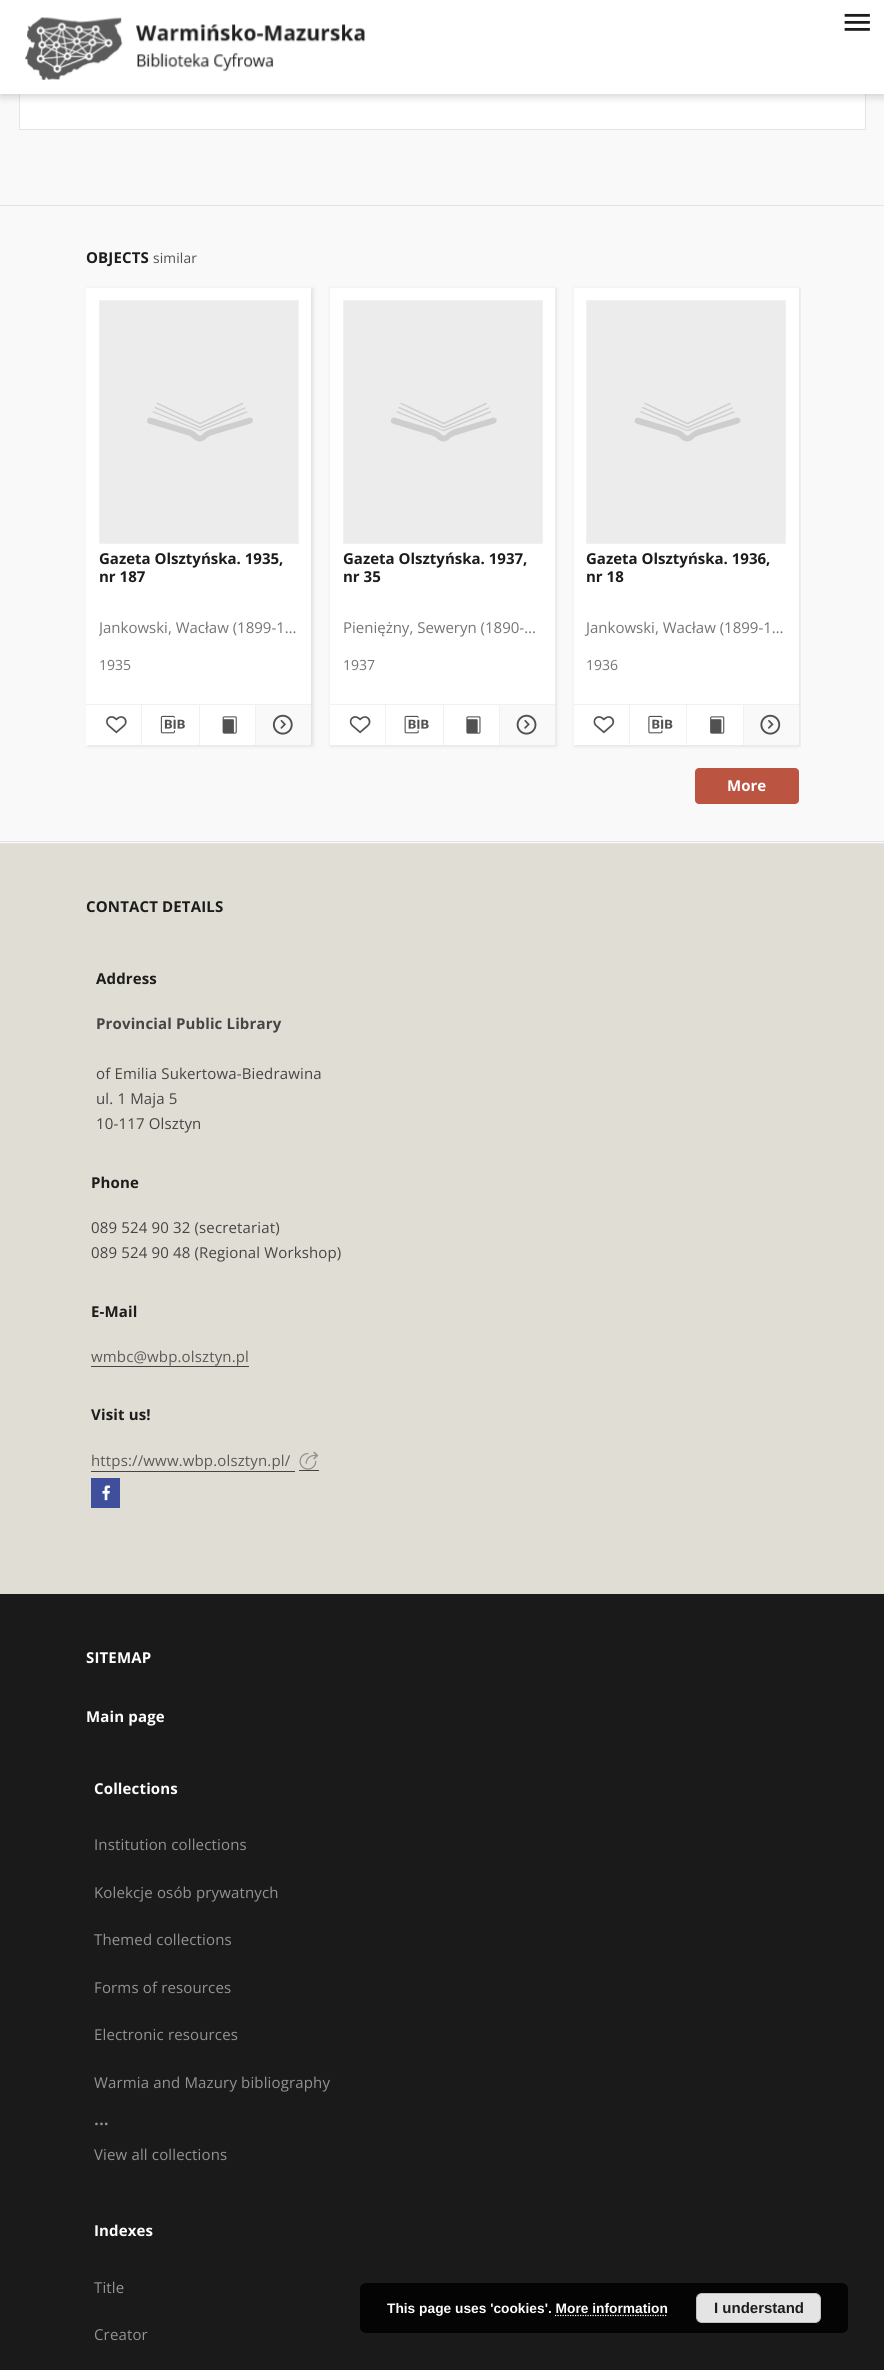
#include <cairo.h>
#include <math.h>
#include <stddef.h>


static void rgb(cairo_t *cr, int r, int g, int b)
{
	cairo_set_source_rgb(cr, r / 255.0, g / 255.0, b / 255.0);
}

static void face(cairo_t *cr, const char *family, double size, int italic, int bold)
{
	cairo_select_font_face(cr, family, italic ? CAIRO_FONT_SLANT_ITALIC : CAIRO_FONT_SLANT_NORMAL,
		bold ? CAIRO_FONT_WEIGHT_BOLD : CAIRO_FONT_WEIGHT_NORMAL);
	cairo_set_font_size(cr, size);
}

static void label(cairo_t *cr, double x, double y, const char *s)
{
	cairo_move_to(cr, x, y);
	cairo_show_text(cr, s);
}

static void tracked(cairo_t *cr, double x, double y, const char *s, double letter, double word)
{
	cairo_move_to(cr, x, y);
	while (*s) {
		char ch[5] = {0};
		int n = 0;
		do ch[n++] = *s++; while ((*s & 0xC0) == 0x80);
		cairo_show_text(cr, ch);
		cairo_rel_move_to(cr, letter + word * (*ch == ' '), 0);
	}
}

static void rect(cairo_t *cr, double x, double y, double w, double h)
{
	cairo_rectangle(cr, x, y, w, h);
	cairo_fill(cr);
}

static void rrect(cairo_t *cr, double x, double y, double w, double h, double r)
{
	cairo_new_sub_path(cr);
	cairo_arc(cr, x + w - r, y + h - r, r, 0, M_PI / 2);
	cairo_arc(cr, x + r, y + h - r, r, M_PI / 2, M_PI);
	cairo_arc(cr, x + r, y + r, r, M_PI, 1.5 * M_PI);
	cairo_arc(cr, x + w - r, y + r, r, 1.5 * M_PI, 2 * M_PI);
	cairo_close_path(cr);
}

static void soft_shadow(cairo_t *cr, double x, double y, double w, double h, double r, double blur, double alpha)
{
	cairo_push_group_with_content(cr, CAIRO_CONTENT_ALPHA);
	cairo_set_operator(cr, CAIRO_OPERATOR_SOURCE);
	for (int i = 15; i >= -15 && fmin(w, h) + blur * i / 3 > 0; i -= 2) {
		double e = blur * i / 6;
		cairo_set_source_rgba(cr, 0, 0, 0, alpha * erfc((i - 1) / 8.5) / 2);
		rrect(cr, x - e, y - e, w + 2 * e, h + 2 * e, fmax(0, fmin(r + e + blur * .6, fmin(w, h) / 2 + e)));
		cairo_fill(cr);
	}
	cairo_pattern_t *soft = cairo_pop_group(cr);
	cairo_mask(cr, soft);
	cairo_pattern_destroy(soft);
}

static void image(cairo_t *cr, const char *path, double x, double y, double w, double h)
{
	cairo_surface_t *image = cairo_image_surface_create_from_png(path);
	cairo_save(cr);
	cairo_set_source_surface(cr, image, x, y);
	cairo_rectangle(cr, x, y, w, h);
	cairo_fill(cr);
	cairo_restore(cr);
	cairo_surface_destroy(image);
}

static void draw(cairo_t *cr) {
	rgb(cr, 249, 249, 249);
	cairo_paint(cr);
	rgb(cr, 255, 255, 255);
	rect(cr, 20, 94, 845, 35);
	rgb(cr, 228, 228, 228);
	rect(cr, 865, 94, 1, 36);
	rect(cr, 19, 129, 847, 1);
	rect(cr, 19, 94, 1, 36);
	rgb(cr, 0, 0, 0);
	soft_shadow(cr, 0, 1, 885, 94, 0, 6, 0.08);
	soft_shadow(cr, 0, 5, 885, 94, 0, 3, 0.06);
	soft_shadow(cr, 1, 4, 883, 91, 0, 2.5, 0.06);
	rgb(cr, 255, 255, 255);
	rect(cr, 0, 0, 884, 94);
	image(cr, "image0.png", 25, 17, 340, 63);
	image(cr, "image1.png", 844, 13, 26, 18);
	rgb(cr, 228, 228, 228);
	rect(cr, 0, 205, 884, 1);
	rect(cr, 0, 841, 884, 1);
	face(cr, "Open Sans", 15, 0, 1);
	rgb(cr, 28, 28, 28);
	tracked(cr, 86, 263, "OBJECTS", 0.15, 0);
	face(cr, "Open Sans", 13.75, 0, 0);
	rgb(cr, 80, 79, 77);
	tracked(cr, 153, 263, "similar", 0.15, 0);
	rgb(cr, 222, 222, 222);
	soft_shadow(cr, 88, 289, 225, 457, 0, 2, 1);
	rgb(cr, 255, 255, 255);
	rect(cr, 86, 288, 225, 457);
	rgb(cr, 236, 236, 236);
	cairo_rectangle(cr, 99.5, 300.5, 199, 243);
	cairo_fill_preserve(cr);
	rgb(cr, 241, 241, 241);
	cairo_set_line_width(cr, 1);
	cairo_stroke(cr);
	image(cr, "image2.png", 147, 402, 106, 40);
	face(cr, "Open Sans", 15, 0, 1);
	rgb(cr, 28, 28, 28);
	label(cr, 99, 564, "Gazeta Olsztyńska. 1935,");
	label(cr, 99, 582, "nr 187");
	cairo_save(cr);
	cairo_rectangle(cr, 99, 619, 200, 19);
	cairo_clip(cr);
	face(cr, "Open Sans", 15, 0, 0);
	rgb(cr, 117, 117, 117);
	label(cr, 99, 633, "Jankowski, Wacław (1899-1…");
	cairo_restore(cr);
	face(cr, "Open Sans", 14, 0, 0);
	rgb(cr, 117, 117, 117);
	label(cr, 99, 670, "1935");
	rgb(cr, 241, 241, 241);
	rect(cr, 86, 704, 225, 1);
	rect(cr, 141, 705, 1, 40);
	image(cr, "image3.png", 106, 716, 21, 18);
	rect(cr, 199, 705, 1, 40);
	image(cr, "image4.png", 160, 715, 25, 19);
	rect(cr, 255, 705, 1, 40);
	image(cr, "image5.png", 222, 716, 15, 18);
	rgb(cr, 249, 249, 249);
	rect(cr, 256, 705, 55, 40);
	image(cr, "image6.png", 272, 714, 21, 21);
	rgb(cr, 222, 222, 222);
	soft_shadow(cr, 331, 289, 225, 457, 0, 2, 1);
	rgb(cr, 255, 255, 255);
	rect(cr, 330, 288, 225, 457);
	rgb(cr, 236, 236, 236);
	cairo_rectangle(cr, 343.5, 300.5, 199, 243);
	cairo_fill_preserve(cr);
	rgb(cr, 241, 241, 241);
	cairo_stroke(cr);
	image(cr, "image7.png", 391, 402, 106, 40);
	face(cr, "Open Sans", 15, 0, 1);
	rgb(cr, 28, 28, 28);
	label(cr, 343, 564, "Gazeta Olsztyńska. 1937,");
	label(cr, 343, 582, "nr 35");
	face(cr, "Open Sans", 15, 0, 0);
	rgb(cr, 117, 117, 117);
	label(cr, 343, 633, "Pieniężny, Seweryn (1890-…");
	face(cr, "Open Sans", 14, 0, 0);
	label(cr, 343, 670, "1937");
	rgb(cr, 241, 241, 241);
	rect(cr, 330, 704, 225, 1);
	rect(cr, 385, 705, 1, 40);
	image(cr, "image8.png", 349, 716, 22, 18);
	rect(cr, 443, 705, 1, 40);
	image(cr, "image9.png", 404, 715, 25, 19);
	rect(cr, 499, 705, 1, 40);
	image(cr, "image10.png", 466, 716, 15, 18);
	rgb(cr, 249, 249, 249);
	rect(cr, 500, 705, 55, 40);
	image(cr, "image11.png", 516, 714, 21, 21);
	cairo_save(cr);
	cairo_rectangle(cr, 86, 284, 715, 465);
	cairo_clip(cr);
	rgb(cr, 222, 222, 222);
	soft_shadow(cr, 575, 289, 225, 457, 0, 2, 1);
	cairo_restore(cr);
	rgb(cr, 255, 255, 255);
	rect(cr, 574, 288, 225, 457);
	rgb(cr, 236, 236, 236);
	cairo_rectangle(cr, 586.5, 300.5, 199, 243);
	cairo_fill_preserve(cr);
	rgb(cr, 241, 241, 241);
	cairo_stroke(cr);
	image(cr, "image12.png", 634, 402, 107, 40);
	face(cr, "Open Sans", 15, 0, 1);
	rgb(cr, 28, 28, 28);
	label(cr, 586, 564, "Gazeta Olsztyńska. 1936,");
	label(cr, 586, 582, "nr 18");
	face(cr, "Open Sans", 15, 0, 0);
	rgb(cr, 117, 117, 117);
	label(cr, 586, 633, "Jankowski, Wacław (1899-1…");
	face(cr, "Open Sans", 14, 0, 0);
	label(cr, 586, 670, "1936");
	rgb(cr, 241, 241, 241);
	rect(cr, 574, 704, 225, 1);
	rect(cr, 629, 705, 1, 40);
	image(cr, "image13.png", 593, 716, 22, 18);
	rect(cr, 686, 705, 1, 40);
	image(cr, "image14.png", 648, 715, 25, 19);
	rect(cr, 743, 705, 1, 40);
	image(cr, "image15.png", 710, 716, 15, 18);
	rgb(cr, 249, 249, 249);
	rect(cr, 744, 705, 55, 40);
	image(cr, "image16.png", 760, 714, 21, 21);
	rgb(cr, 188, 84, 66);
	rrect(cr, 695.5, 768.5, 103, 35, 3.5);
	cairo_fill_preserve(cr);
	cairo_stroke(cr);
	face(cr, "Open Sans", 15, 0, 1);
	rgb(cr, 255, 255, 255);
	label(cr, 727, 791, "More");
	rgb(cr, 224, 221, 212);
	rect(cr, 0, 844, 884, 750);
	rgb(cr, 228, 228, 228);
	rect(cr, 0, 843, 884, 1);
	rgb(cr, 28, 28, 28);
	tracked(cr, 86, 912, "CONTACT DETAILS", 0.15, 0);
	tracked(cr, 96, 984, "Address", 0.15, 0);
	rgb(cr, 69, 69, 69);
	tracked(cr, 96, 1029, "Provincial Public Library", 0.15, 0);
	face(cr, "Open Sans", 15, 0, 0);
	tracked(cr, 96, 1079, "of Emilia Sukertowa-Biedrawina", 0.15, 0);
	tracked(cr, 96, 1104, "ul. 1 Maja 5", 0.15, 0);
	tracked(cr, 96, 1129, "10-117 Olsztyn", 0.15, 0);
	face(cr, "Open Sans", 15, 0, 1);
	rgb(cr, 28, 28, 28);
	tracked(cr, 91, 1188, "Phone", 0.15, 0);
	face(cr, "Open Sans", 15, 0, 0);
	rgb(cr, 69, 69, 69);
	tracked(cr, 91, 1233, "089 524 90 32 (secretariat)", 0.15, 0);
	tracked(cr, 91, 1258, "089 524 90 48 (Regional Workshop)", 0.15, 0);
	face(cr, "Open Sans", 15, 0, 1);
	rgb(cr, 28, 28, 28);
	tracked(cr, 91, 1317, "E-Mail", 0.15, 0);
	face(cr, "Open Sans", 15, 0, 0);
	rgb(cr, 90, 90, 90);
	tracked(cr, 91, 1362, "wmbc@wbp.olsztyn.pl", 0.15, 0);
	rgb(cr, 69, 69, 69);
	rect(cr, 91, 1366, 158, 1);
	face(cr, "Open Sans", 15, 0, 1);
	rgb(cr, 28, 28, 28);
	tracked(cr, 91, 1420, "Visit us!", 0.15, 0);
	face(cr, "Open Sans", 15, 0, 0);
	rgb(cr, 90, 90, 90);
	tracked(cr, 91, 1466, "https://www.wbp.olsztyn.pl/", 0.15, 0);
	rgb(cr, 69, 69, 69);
	rect(cr, 91, 1471, 204, 1);
	rect(cr, 299, 1470, 20, 1);
	image(cr, "image17.png", 299, 1451, 20, 19);
	rgb(cr, 63, 79, 156);
	rect(cr, 91, 1478, 29, 30);
	image(cr, "image18.png", 102, 1485, 8, 16);
	rgb(cr, 27, 26, 26);
	rect(cr, 0, 1594, 884, 776);
	face(cr, "Open Sans", 15, 0, 1);
	rgb(cr, 255, 255, 255);
	tracked(cr, 86, 1663, "SITEMAP", 0.15, 0);
	tracked(cr, 86, 1722, "Main page", 0.15, 0);
	tracked(cr, 94, 1794, "Collections", 0.15, 0);
	face(cr, "Open Sans", 15, 0, 0);
	rgb(cr, 147, 147, 147);
	tracked(cr, 94, 1850, "Institution collections", 0.15, 0);
	tracked(cr, 94, 1898, "Kolekcje osób prywatnych", 0.15, 0);
	tracked(cr, 94, 1945, "Themed collections", 0.15, 0);
	tracked(cr, 94, 1993, "Forms of resources", 0.15, 0);
	tracked(cr, 94, 2040, "Electronic resources", 0.15, 0);
	tracked(cr, 94, 2088, "Warmia and Mazury bibliography", 0.15, 0);
	face(cr, "Open Sans SemiBold", 18, 0, 0);
	label(cr, 94, 2125, "...");
	face(cr, "Open Sans", 15, 0, 0);
	tracked(cr, 94, 2160, "View all collections", 0.15, 0);
	face(cr, "Open Sans", 15, 0, 1);
	rgb(cr, 255, 255, 255);
	tracked(cr, 94, 2236, "Indexes", 0.15, 0);
	face(cr, "Open Sans", 15, 0, 0);
	rgb(cr, 147, 147, 147);
	tracked(cr, 94, 2293, "Title", 0.15, 0);
	tracked(cr, 94, 2340, "Creator", 0.15, 0);
	rgb(cr, 4, 4, 4);
	rrect(cr, 360, 2283, 488, 50, 6);
	cairo_fill(cr);
	face(cr, "Liberation Sans", 13.75, 0, 1);
	rgb(cr, 255, 255, 255);
	label(cr, 387, 2313, "This page uses 'cookies'. More information");
	rgb(cr, 228, 228, 228);
	rrect(cr, 696.5, 2293.5, 124, 29, 5.5);
	cairo_fill_preserve(cr);
	rgb(cr, 193, 193, 193);
	cairo_stroke(cr);
	face(cr, "Liberation Sans", 15, 0, 1);
	rgb(cr, 28, 28, 28);
	label(cr, 714, 2313, "I understand");
	cairo_new_path(cr);
	cairo_move_to(cr, 555, 2315.5);
	cairo_line_to(cr, 667.5, 2315.5);
	rgb(cr, 255, 255, 255);
	cairo_set_line_width(cr, 1.2);
	cairo_set_dash(cr, (double[]){1.25, 1.25}, 2, 0);
	cairo_stroke(cr);
}

int main(void) {
	cairo_surface_t *surface = cairo_image_surface_create(CAIRO_FORMAT_RGB24, 884, 2370);
	cairo_t *cr = cairo_create(surface);
	cairo_font_options_t *options = cairo_font_options_create();
	cairo_font_options_set_hint_metrics(options, CAIRO_HINT_METRICS_OFF);
	cairo_font_options_set_hint_style(options, CAIRO_HINT_STYLE_NONE);
	cairo_set_font_options(cr, options);
	cairo_set_miter_limit(cr, 4);
	draw(cr);
	cairo_surface_write_to_png(surface, "render.png");
	cairo_font_options_destroy(options);
	cairo_destroy(cr);
	cairo_surface_destroy(surface);
	return 0;
}
